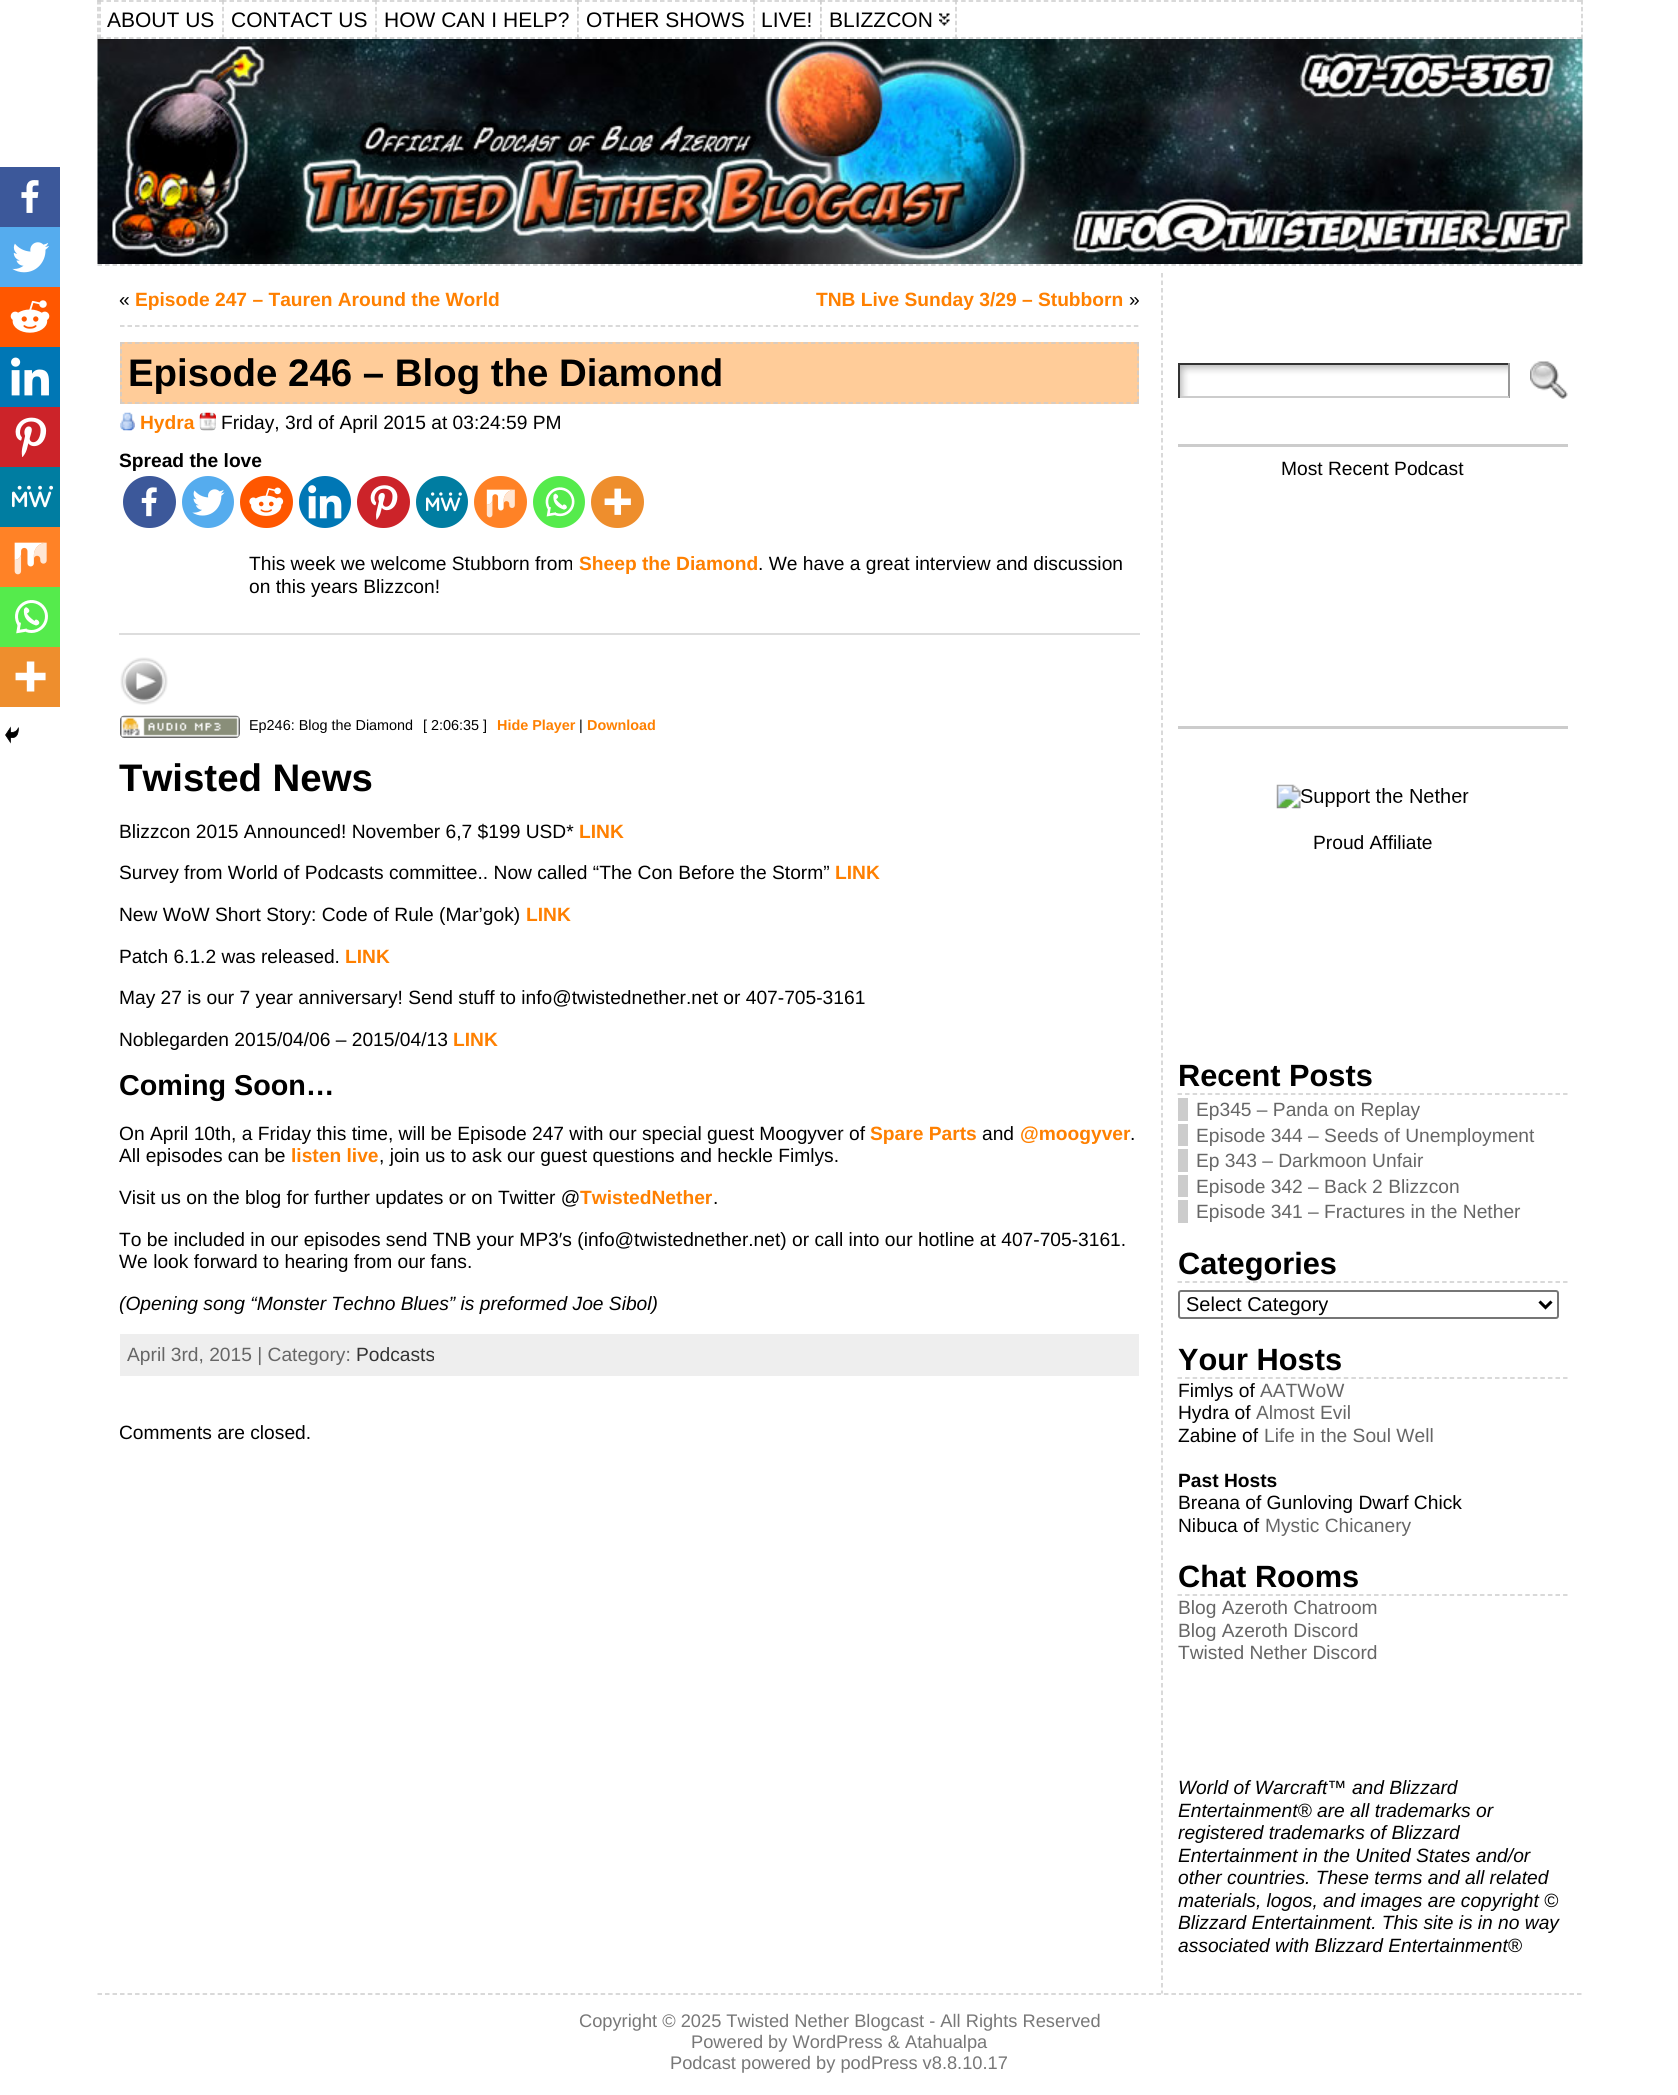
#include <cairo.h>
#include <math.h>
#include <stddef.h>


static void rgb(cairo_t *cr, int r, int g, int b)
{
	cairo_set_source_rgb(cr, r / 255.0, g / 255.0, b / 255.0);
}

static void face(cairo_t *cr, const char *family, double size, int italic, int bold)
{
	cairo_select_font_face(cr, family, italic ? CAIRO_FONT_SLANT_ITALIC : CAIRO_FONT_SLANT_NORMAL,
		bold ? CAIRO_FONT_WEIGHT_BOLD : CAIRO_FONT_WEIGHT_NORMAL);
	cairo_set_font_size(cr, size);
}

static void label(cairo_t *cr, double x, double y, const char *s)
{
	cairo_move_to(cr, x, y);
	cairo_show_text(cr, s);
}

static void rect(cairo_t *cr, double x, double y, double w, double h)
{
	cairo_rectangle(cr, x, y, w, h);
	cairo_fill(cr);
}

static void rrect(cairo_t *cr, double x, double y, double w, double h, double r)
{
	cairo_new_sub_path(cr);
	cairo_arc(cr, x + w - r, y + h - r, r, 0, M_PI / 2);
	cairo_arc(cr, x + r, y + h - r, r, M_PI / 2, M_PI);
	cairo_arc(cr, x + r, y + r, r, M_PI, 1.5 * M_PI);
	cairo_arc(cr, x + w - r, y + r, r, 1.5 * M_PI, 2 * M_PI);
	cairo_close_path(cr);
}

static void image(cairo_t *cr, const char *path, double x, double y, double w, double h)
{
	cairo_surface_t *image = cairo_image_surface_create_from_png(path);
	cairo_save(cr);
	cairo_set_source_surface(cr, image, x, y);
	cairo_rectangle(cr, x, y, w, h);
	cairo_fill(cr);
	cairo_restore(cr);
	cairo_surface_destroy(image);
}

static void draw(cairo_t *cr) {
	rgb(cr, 255, 255, 255);
	cairo_paint(cr);
	cairo_new_path(cr);
	cairo_move_to(cr, 97.5, 1);
	cairo_line_to(cr, 1582.5, 1);
	rgb(cr, 204, 204, 204);
	cairo_set_line_width(cr, 1.5);
	cairo_set_dash(cr, (double[]){4.5, 3.01}, 2, 0);
	cairo_stroke(cr);
	cairo_new_path(cr);
	cairo_move_to(cr, 1582, 0);
	cairo_line_to(cr, 1582, 39);
	cairo_set_dash(cr, (double[]){4.5, 2.4}, 2, 0);
	cairo_stroke(cr);
	cairo_new_path(cr);
	cairo_move_to(cr, 97.5, 38);
	cairo_line_to(cr, 1582.5, 38);
	cairo_set_dash(cr, (double[]){4.5, 3.01}, 2, 0);
	cairo_stroke(cr);
	cairo_new_path(cr);
	cairo_move_to(cr, 98, 0);
	cairo_line_to(cr, 98, 39);
	cairo_set_dash(cr, (double[]){4.5, 2.4}, 2, 0);
	cairo_stroke(cr);
	rgb(cr, 255, 255, 255);
	rect(cr, 99, 0, 123, 39);
	cairo_new_path(cr);
	cairo_move_to(cr, 99, 1);
	cairo_line_to(cr, 223.5, 1);
	rgb(cr, 204, 204, 204);
	cairo_set_dash(cr, (double[]){4.5, 3}, 2, 0);
	cairo_stroke(cr);
	cairo_new_path(cr);
	cairo_move_to(cr, 99, 38);
	cairo_line_to(cr, 223.5, 38);
	cairo_stroke(cr);
	cairo_new_path(cr);
	cairo_move_to(cr, 100, 0);
	cairo_line_to(cr, 100, 39);
	cairo_set_dash(cr, (double[]){4.5, 2.4}, 2, 0);
	cairo_stroke(cr);
	face(cr, "Liberation Sans", 21, 0, 0);
	rgb(cr, 0, 0, 0);
	label(cr, 107, 27, "ABOUT US");
	rgb(cr, 255, 255, 255);
	rect(cr, 222, 0, 151, 39);
	cairo_new_path(cr);
	cairo_move_to(cr, 222, 1);
	cairo_line_to(cr, 376.5, 1);
	rgb(cr, 204, 204, 204);
	cairo_set_dash(cr, (double[]){4.5, 3}, 2, 0);
	cairo_stroke(cr);
	cairo_new_path(cr);
	cairo_move_to(cr, 222, 38);
	cairo_line_to(cr, 376.5, 38);
	cairo_stroke(cr);
	cairo_new_path(cr);
	cairo_move_to(cr, 223, 0);
	cairo_line_to(cr, 223, 39);
	cairo_set_dash(cr, (double[]){4.5, 2.4}, 2, 0);
	cairo_stroke(cr);
	rgb(cr, 0, 0, 0);
	label(cr, 231, 27, "CONTACT US");
	rgb(cr, 255, 255, 255);
	rect(cr, 375, 0, 201, 39);
	cairo_new_path(cr);
	cairo_move_to(cr, 375, 1);
	cairo_line_to(cr, 579, 1);
	rgb(cr, 204, 204, 204);
	cairo_set_dash(cr, (double[]){4.5, 2.9}, 2, 0);
	cairo_stroke(cr);
	cairo_new_path(cr);
	cairo_move_to(cr, 578, 0);
	cairo_line_to(cr, 578, 39);
	cairo_set_dash(cr, (double[]){4.5, 2.4}, 2, 0);
	cairo_stroke(cr);
	cairo_new_path(cr);
	cairo_move_to(cr, 375, 38);
	cairo_line_to(cr, 579, 38);
	cairo_set_dash(cr, (double[]){4.5, 2.9}, 2, 0);
	cairo_stroke(cr);
	cairo_new_path(cr);
	cairo_move_to(cr, 376, 0);
	cairo_line_to(cr, 376, 39);
	cairo_set_dash(cr, (double[]){4.5, 2.4}, 2, 0);
	cairo_stroke(cr);
	rgb(cr, 0, 0, 0);
	label(cr, 384, 27, "HOW CAN I HELP?");
	rgb(cr, 255, 255, 255);
	rect(cr, 578, 0, 175, 39);
	cairo_new_path(cr);
	cairo_move_to(cr, 577.5, 1);
	cairo_line_to(cr, 754.5, 1);
	rgb(cr, 204, 204, 204);
	cairo_set_dash(cr, (double[]){4.5, 3}, 2, 0);
	cairo_stroke(cr);
	cairo_new_path(cr);
	cairo_move_to(cr, 577.5, 38);
	cairo_line_to(cr, 754.5, 38);
	cairo_stroke(cr);
	cairo_new_path(cr);
	cairo_move_to(cr, 578, 0);
	cairo_line_to(cr, 578, 39);
	cairo_set_dash(cr, (double[]){4.5, 2.4}, 2, 0);
	cairo_stroke(cr);
	rgb(cr, 0, 0, 0);
	label(cr, 586, 27, "OTHER SHOWS");
	rgb(cr, 255, 255, 255);
	rect(cr, 753, 0, 68, 39);
	cairo_new_path(cr);
	cairo_move_to(cr, 753, 1);
	cairo_line_to(cr, 822, 1);
	rgb(cr, 204, 204, 204);
	cairo_set_dash(cr, (double[]){4.5, 2.67}, 2, 0);
	cairo_stroke(cr);
	cairo_new_path(cr);
	cairo_move_to(cr, 821, 0);
	cairo_line_to(cr, 821, 39);
	cairo_set_dash(cr, (double[]){4.5, 2.4}, 2, 0);
	cairo_stroke(cr);
	cairo_new_path(cr);
	cairo_move_to(cr, 753, 38);
	cairo_line_to(cr, 822, 38);
	cairo_set_dash(cr, (double[]){4.5, 2.67}, 2, 0);
	cairo_stroke(cr);
	cairo_new_path(cr);
	cairo_move_to(cr, 754, 0);
	cairo_line_to(cr, 754, 39);
	cairo_set_dash(cr, (double[]){4.5, 2.4}, 2, 0);
	cairo_stroke(cr);
	rgb(cr, 0, 0, 0);
	label(cr, 761, 27, "LIVE!");
	rgb(cr, 255, 255, 255);
	rect(cr, 821, 0, 136, 39);
	image(cr, "image0.png", 939, 13, 11, 13);
	cairo_new_path(cr);
	cairo_move_to(cr, 820.5, 1);
	cairo_line_to(cr, 957, 1);
	rgb(cr, 204, 204, 204);
	cairo_set_dash(cr, (double[]){4.5, 2.83}, 2, 0);
	cairo_stroke(cr);
	cairo_new_path(cr);
	cairo_move_to(cr, 956, 0);
	cairo_line_to(cr, 956, 39);
	cairo_set_dash(cr, (double[]){4.5, 2.4}, 2, 0);
	cairo_stroke(cr);
	cairo_new_path(cr);
	cairo_move_to(cr, 820.5, 38);
	cairo_line_to(cr, 957, 38);
	cairo_set_dash(cr, (double[]){4.5, 2.83}, 2, 0);
	cairo_stroke(cr);
	cairo_new_path(cr);
	cairo_move_to(cr, 821, 0);
	cairo_line_to(cr, 821, 39);
	cairo_set_dash(cr, (double[]){4.5, 2.4}, 2, 0);
	cairo_stroke(cr);
	rgb(cr, 0, 0, 0);
	label(cr, 829, 27, "BLIZZCON");
	image(cr, "image1.png", 97, 39, 1486, 225);
	cairo_new_path(cr);
	cairo_move_to(cr, 97.5, 265);
	cairo_line_to(cr, 1582.5, 265);
	rgb(cr, 204, 204, 204);
	cairo_set_dash(cr, (double[]){4.5, 3.01}, 2, 0);
	cairo_stroke(cr);
	cairo_new_path(cr);
	cairo_move_to(cr, 120, 326);
	cairo_line_to(cr, 1138.5, 326);
	cairo_stroke(cr);
	face(cr, "Liberation Sans", 19.2, 0, 0);
	rgb(cr, 0, 0, 0);
	label(cr, 119, 306, "«");
	face(cr, "Liberation Sans", 19.2, 0, 1);
	rgb(cr, 255, 128, 0);
	label(cr, 135, 306, "Episode 247 – Tauren Around the World");
	label(cr, 816, 306, "TNB Live Sunday 3/29 – Stubborn");
	face(cr, "Liberation Sans", 19.2, 0, 0);
	rgb(cr, 0, 0, 0);
	label(cr, 1129, 306, "»");
	rgb(cr, 255, 204, 153);
	rect(cr, 120, 342, 1019, 62);
	cairo_new_path(cr);
	cairo_move_to(cr, 120, 343);
	cairo_line_to(cr, 1138.5, 343);
	rgb(cr, 204, 204, 204);
	cairo_stroke(cr);
	cairo_new_path(cr);
	cairo_move_to(cr, 1138, 342);
	cairo_line_to(cr, 1138, 403.5);
	cairo_set_dash(cr, (double[]){4.5, 2.62}, 2, 0);
	cairo_stroke(cr);
	cairo_new_path(cr);
	cairo_move_to(cr, 120, 403);
	cairo_line_to(cr, 1138.5, 403);
	cairo_set_dash(cr, (double[]){4.5, 3.01}, 2, 0);
	cairo_stroke(cr);
	cairo_new_path(cr);
	cairo_move_to(cr, 121, 342);
	cairo_line_to(cr, 121, 403.5);
	cairo_set_dash(cr, (double[]){4.5, 2.62}, 2, 0);
	cairo_stroke(cr);
	face(cr, "Liberation Sans", 38.4, 0, 1);
	rgb(cr, 0, 0, 0);
	label(cr, 128, 386, "Episode 246 – Blog the Diamond");
	image(cr, "image2.png", 120, 412, 15, 19);
	face(cr, "Liberation Sans", 19.2, 0, 1);
	rgb(cr, 255, 128, 0);
	label(cr, 140, 429, "Hydra");
	image(cr, "image3.png", 199, 412, 17, 19);
	face(cr, "Liberation Sans", 19.2, 0, 0);
	rgb(cr, 0, 0, 0);
	label(cr, 221, 429, "Friday, 3rd of April 2015 at 03:24:59 PM");
	rgb(cr, 60, 88, 154);
	rect(cr, 0, 167, 60, 60);
	image(cr, "image4.png", 21, 180, 18, 33);
	rgb(cr, 85, 172, 238);
	rect(cr, 0, 227, 60, 60);
	image(cr, "image5.png", 12, 242, 37, 31);
	rgb(cr, 255, 87, 0);
	rect(cr, 0, 287, 60, 60);
	image(cr, "image6.png", 10, 300, 40, 33);
	rgb(cr, 0, 119, 181);
	rect(cr, 0, 347, 60, 60);
	image(cr, "image7.png", 11, 357, 38, 39);
	rgb(cr, 204, 35, 41);
	rect(cr, 0, 407, 60, 60);
	image(cr, "image8.png", 15, 417, 32, 40);
	rgb(cr, 0, 125, 161);
	rect(cr, 0, 467, 60, 60);
	image(cr, "image9.png", 12, 485, 41, 23);
	rgb(cr, 255, 130, 38);
	rect(cr, 0, 527, 60, 60);
	image(cr, "image10.png", 14, 542, 33, 33);
	rgb(cr, 85, 235, 76);
	rect(cr, 0, 587, 60, 60);
	image(cr, "image11.png", 15, 600, 33, 34);
	rgb(cr, 238, 142, 45);
	rect(cr, 0, 647, 60, 60);
	image(cr, "image12.png", 15, 661, 31, 31);
	image(cr, "image13.png", 5, 726, 14, 18);
	face(cr, "Liberation Sans", 19.2, 0, 1);
	rgb(cr, 0, 0, 0);
	label(cr, 119, 467, "Spread the love");
	rgb(cr, 60, 88, 154);
	rrect(cr, 123, 476, 53, 52, 26);
	cairo_fill(cr);
	image(cr, "image14.png", 141, 487, 16, 30);
	rgb(cr, 85, 172, 238);
	cairo_arc(cr, 208, 502, 26, 0, 2 * M_PI);
	cairo_fill(cr);
	image(cr, "image15.png", 192, 489, 33, 27);
	rgb(cr, 255, 87, 0);
	rrect(cr, 240, 476, 53, 52, 26);
	cairo_fill(cr);
	image(cr, "image16.png", 249, 487, 35, 29);
	rgb(cr, 0, 119, 181);
	cairo_arc(cr, 325, 502, 26, 0, 2 * M_PI);
	cairo_fill(cr);
	image(cr, "image17.png", 308, 485, 34, 34);
	rgb(cr, 204, 35, 41);
	rrect(cr, 357, 476, 53, 52, 26);
	cairo_fill(cr);
	image(cr, "image18.png", 370, 485, 28, 35);
	rgb(cr, 0, 125, 161);
	cairo_arc(cr, 442, 502, 26, 0, 2 * M_PI);
	cairo_fill(cr);
	image(cr, "image19.png", 426, 492, 36, 20);
	rgb(cr, 255, 130, 38);
	rrect(cr, 474, 476, 53, 52, 26);
	cairo_fill(cr);
	image(cr, "image20.png", 486, 489, 29, 29);
	rgb(cr, 85, 235, 76);
	cairo_arc(cr, 559, 502, 26, 0, 2 * M_PI);
	cairo_fill(cr);
	image(cr, "image21.png", 545, 487, 30, 30);
	rgb(cr, 238, 142, 45);
	rrect(cr, 591, 476, 53, 52, 26);
	cairo_fill(cr);
	image(cr, "image22.png", 604, 488, 27, 27);
	rgb(cr, 221, 221, 221);
	rect(cr, 119, 633, 1021, 2);
	face(cr, "Liberation Sans", 19.2, 0, 0);
	rgb(cr, 0, 0, 0);
	label(cr, 249, 570, "This week we welcome Stubborn from");
	face(cr, "Liberation Sans", 19.2, 0, 1);
	rgb(cr, 255, 128, 0);
	label(cr, 579, 570, "Sheep the Diamond");
	face(cr, "Liberation Sans", 19.2, 0, 0);
	rgb(cr, 0, 0, 0);
	label(cr, 758, 570, ". We have a great interview and discussion");
	label(cr, 249, 593, "on this years Blizzcon!");
	image(cr, "image23.png", 120, 657, 48, 48);
	image(cr, "image24.png", 120, 715, 120, 23);
	face(cr, "Liberation Sans", 14.4, 0, 0);
	label(cr, 249, 730, "Ep246: Blog the Diamond");
	label(cr, 423, 730, "[ 2:06:35 ]");
	face(cr, "Liberation Sans", 14.4, 0, 1);
	rgb(cr, 255, 128, 0);
	label(cr, 497, 730, "Hide Player");
	face(cr, "Liberation Sans", 14.4, 0, 0);
	rgb(cr, 0, 0, 0);
	label(cr, 579, 730, "|");
	face(cr, "Liberation Sans", 14.4, 0, 1);
	rgb(cr, 255, 128, 0);
	label(cr, 587, 730, "Download");
	face(cr, "Liberation Sans", 38.4, 0, 1);
	rgb(cr, 0, 0, 0);
	label(cr, 119, 791, "Twisted News");
	face(cr, "Liberation Sans", 19.2, 0, 0);
	label(cr, 119, 838, "Blizzcon 2015 Announced! November 6,7 $199 USD*");
	face(cr, "Liberation Sans", 19.2, 0, 1);
	rgb(cr, 255, 128, 0);
	label(cr, 579, 838, "LINK");
	face(cr, "Liberation Sans", 19.2, 0, 0);
	rgb(cr, 0, 0, 0);
	label(cr, 119, 879, "Survey from World of Podcasts committee.. Now called “The Con Before the Storm”");
	face(cr, "Liberation Sans", 19.2, 0, 1);
	rgb(cr, 255, 128, 0);
	label(cr, 835, 879, "LINK");
	face(cr, "Liberation Sans", 19.2, 0, 0);
	rgb(cr, 0, 0, 0);
	label(cr, 119, 921, "New WoW Short Story: Code of Rule (Mar’gok)");
	face(cr, "Liberation Sans", 19.2, 0, 1);
	rgb(cr, 255, 128, 0);
	label(cr, 526, 921, "LINK");
	face(cr, "Liberation Sans", 19.2, 0, 0);
	rgb(cr, 0, 0, 0);
	label(cr, 119, 963, "Patch 6.1.2 was released.");
	face(cr, "Liberation Sans", 19.2, 0, 1);
	rgb(cr, 255, 128, 0);
	label(cr, 345, 963, "LINK");
	face(cr, "Liberation Sans", 19.2, 0, 0);
	rgb(cr, 0, 0, 0);
	label(cr, 119, 1004, "May 27 is our 7 year anniversary! Send stuff to info@twistednether.net or 407-705-3161");
	label(cr, 119, 1046, "Noblegarden 2015/04/06 – 2015/04/13");
	face(cr, "Liberation Sans", 19.2, 0, 1);
	rgb(cr, 255, 128, 0);
	label(cr, 453, 1046, "LINK");
	face(cr, "Liberation Sans", 28.75, 0, 1);
	rgb(cr, 0, 0, 0);
	label(cr, 119, 1095, "Coming Soon…");
	face(cr, "Liberation Sans", 19.2, 0, 0);
	label(cr, 119, 1140, "On April 10th, a Friday this time, will be Episode 247 with our special guest Moogyver of");
	face(cr, "Liberation Sans", 19.2, 0, 1);
	rgb(cr, 255, 128, 0);
	label(cr, 870, 1140, "Spare Parts");
	face(cr, "Liberation Sans", 19.2, 0, 0);
	rgb(cr, 0, 0, 0);
	label(cr, 982, 1140, "and");
	face(cr, "Liberation Sans", 19.2, 0, 1);
	rgb(cr, 255, 128, 0);
	label(cr, 1020, 1140, "@moogyver");
	face(cr, "Liberation Sans", 19.2, 0, 0);
	rgb(cr, 0, 0, 0);
	label(cr, 1130, 1140, ".");
	label(cr, 119, 1162, "All episodes can be");
	face(cr, "Liberation Sans", 19.2, 0, 1);
	rgb(cr, 255, 128, 0);
	label(cr, 291, 1162, "listen live");
	face(cr, "Liberation Sans", 19.2, 0, 0);
	rgb(cr, 0, 0, 0);
	label(cr, 379, 1162, ", join us to ask our guest questions and heckle Fimlys.");
	label(cr, 119, 1204, "Visit us on the blog for further updates or on Twitter @");
	face(cr, "Liberation Sans", 19.2, 0, 1);
	rgb(cr, 255, 128, 0);
	label(cr, 580, 1204, "TwistedNether");
	face(cr, "Liberation Sans", 19.2, 0, 0);
	rgb(cr, 0, 0, 0);
	label(cr, 713, 1204, ".");
	label(cr, 119, 1246, "To be included in our episodes send TNB your MP3′s (info@twistednether.net) or call into our hotline at 407-705-3161.");
	label(cr, 119, 1268, "We look forward to hearing from our fans.");
	face(cr, "Liberation Sans", 19.2, 1, 0);
	label(cr, 119, 1310, "(Opening song “Monster Techno Blues” is preformed Joe Sibol)");
	rgb(cr, 238, 238, 238);
	rect(cr, 120, 1334, 1019, 42);
	face(cr, "Liberation Sans", 19.2, 0, 0);
	rgb(cr, 102, 102, 102);
	label(cr, 127, 1361, "April 3rd, 2015 | Category:");
	rgb(cr, 51, 51, 51);
	label(cr, 356, 1361, "Podcasts");
	rgb(cr, 0, 0, 0);
	label(cr, 119, 1439, "Comments are closed.");
	cairo_new_path(cr);
	cairo_move_to(cr, 1162, 273);
	cairo_line_to(cr, 1162, 1993.5);
	rgb(cr, 204, 204, 204);
	cairo_set_dash(cr, (double[]){4.5, 3}, 2, 0);
	cairo_stroke(cr);
	image(cr, "image25.png", 1180, 365, 328, 31);
	rgb(cr, 51, 51, 51);
	rect(cr, 1178, 363, 331, 2);
	rgb(cr, 153, 153, 153);
	rect(cr, 1508, 363, 2, 35);
	rgb(cr, 204, 204, 204);
	rect(cr, 1178, 396, 331, 2);
	rgb(cr, 51, 51, 51);
	rect(cr, 1178, 363, 2, 35);
	image(cr, "image26.png", 1530, 361, 38, 38);
	rgb(cr, 204, 204, 204);
	rect(cr, 1178, 444, 390, 3);
	rgb(cr, 0, 0, 0);
	label(cr, 1281, 475, "Most Recent Podcast");
	rgb(cr, 204, 204, 204);
	rect(cr, 1178, 726, 390, 3);
	image(cr, "image27.png", 1276, 784, 193, 25);
	rgb(cr, 0, 0, 0);
	label(cr, 1313, 849, "Proud Affiliate");
	cairo_new_path(cr);
	cairo_move_to(cr, 1177.5, 1094);
	cairo_line_to(cr, 1567.5, 1094);
	rgb(cr, 204, 204, 204);
	cairo_set_dash(cr, (double[]){4.5, 3.06}, 2, 0);
	cairo_stroke(cr);
	face(cr, "Liberation Sans", 30.75, 0, 1);
	rgb(cr, 0, 0, 0);
	label(cr, 1178, 1086, "Recent Posts");
	rgb(cr, 204, 204, 204);
	rect(cr, 1178, 1098, 10, 23);
	face(cr, "Liberation Sans", 19.2, 0, 0);
	rgb(cr, 102, 102, 102);
	label(cr, 1196, 1116, "Ep345 – Panda on Replay");
	rgb(cr, 204, 204, 204);
	rect(cr, 1178, 1124, 10, 22);
	rgb(cr, 102, 102, 102);
	label(cr, 1196, 1142, "Episode 344 – Seeds of Unemployment");
	rgb(cr, 204, 204, 204);
	rect(cr, 1178, 1149, 10, 23);
	rgb(cr, 102, 102, 102);
	label(cr, 1196, 1167, "Ep 343 – Darkmoon Unfair");
	rgb(cr, 204, 204, 204);
	rect(cr, 1178, 1175, 10, 22);
	rgb(cr, 102, 102, 102);
	label(cr, 1196, 1193, "Episode 342 – Back 2 Blizzcon");
	rgb(cr, 204, 204, 204);
	rect(cr, 1178, 1200, 10, 23);
	rgb(cr, 102, 102, 102);
	label(cr, 1196, 1218, "Episode 341 – Fractures in the Nether");
	cairo_new_path(cr);
	cairo_move_to(cr, 1177.5, 1282);
	cairo_line_to(cr, 1567.5, 1282);
	rgb(cr, 204, 204, 204);
	cairo_stroke(cr);
	face(cr, "Liberation Sans", 30.75, 0, 1);
	rgb(cr, 0, 0, 0);
	label(cr, 1178, 1274, "Categories");
	rrect(cr, 1179, 1291, 379, 27, 2);
	rgb(cr, 118, 118, 118);
	cairo_set_line_width(cr, 2);
	cairo_set_dash(cr, NULL, 0, 0);
	cairo_stroke(cr);
	cairo_new_path(cr);
	cairo_move_to(cr, 1539.5, 1301.5);
	cairo_line_to(cr, 1545.5, 1307.5);
	cairo_line_to(cr, 1551.5, 1301.5);
	rgb(cr, 0, 0, 0);
	cairo_set_line_width(cr, 3);
	cairo_stroke(cr);
	face(cr, "Liberation Sans", 20, 0, 0);
	label(cr, 1186, 1311, "Select Category");
	cairo_new_path(cr);
	cairo_move_to(cr, 1177.5, 1378);
	cairo_line_to(cr, 1567.5, 1378);
	rgb(cr, 204, 204, 204);
	cairo_set_line_width(cr, 1.5);
	cairo_set_dash(cr, (double[]){4.5, 3.06}, 2, 0);
	cairo_stroke(cr);
	face(cr, "Liberation Sans", 30.75, 0, 1);
	rgb(cr, 0, 0, 0);
	label(cr, 1178, 1370, "Your Hosts");
	face(cr, "Liberation Sans", 19.2, 0, 0);
	label(cr, 1178, 1397, "Fimlys of");
	rgb(cr, 102, 102, 102);
	label(cr, 1260, 1397, "AATWoW");
	rgb(cr, 0, 0, 0);
	label(cr, 1178, 1419, "Hydra of");
	rgb(cr, 102, 102, 102);
	label(cr, 1256, 1419, "Almost Evil");
	rgb(cr, 0, 0, 0);
	label(cr, 1178, 1442, "Zabine of");
	rgb(cr, 102, 102, 102);
	label(cr, 1264, 1442, "Life in the Soul Well");
	face(cr, "Liberation Sans", 19.2, 0, 1);
	rgb(cr, 0, 0, 0);
	label(cr, 1178, 1487, "Past Hosts");
	face(cr, "Liberation Sans", 19.2, 0, 0);
	label(cr, 1178, 1509, "Breana of Gunloving Dwarf Chick");
	label(cr, 1178, 1532, "Nibuca of");
	rgb(cr, 102, 102, 102);
	label(cr, 1265, 1532, "Mystic Chicanery");
	cairo_new_path(cr);
	cairo_move_to(cr, 1177.5, 1595);
	cairo_line_to(cr, 1567.5, 1595);
	rgb(cr, 204, 204, 204);
	cairo_stroke(cr);
	face(cr, "Liberation Sans", 30.75, 0, 1);
	rgb(cr, 0, 0, 0);
	label(cr, 1178, 1587, "Chat Rooms");
	face(cr, "Liberation Sans", 19.2, 0, 0);
	rgb(cr, 102, 102, 102);
	label(cr, 1178, 1614, "Blog Azeroth Chatroom");
	label(cr, 1178, 1637, "Blog Azeroth Discord");
	label(cr, 1178, 1659, "Twisted Nether Discord");
	face(cr, "Liberation Sans", 19.2, 1, 0);
	rgb(cr, 0, 0, 0);
	label(cr, 1178, 1794, "World of Warcraft™ and Blizzard");
	label(cr, 1178, 1817, "Entertainment® are all trademarks or");
	label(cr, 1178, 1839, "registered trademarks of Blizzard");
	label(cr, 1178, 1862, "Entertainment in the United States and/or");
	label(cr, 1178, 1884, "other countries. These terms and all related");
	label(cr, 1178, 1907, "materials, logos, and images are copyright ©");
	label(cr, 1178, 1929, "Blizzard Entertainment. This site is in no way");
	label(cr, 1178, 1952, "associated with Blizzard Entertainment®");
	cairo_new_path(cr);
	cairo_move_to(cr, 97.5, 1994);
	cairo_line_to(cr, 1582.5, 1994);
	rgb(cr, 204, 204, 204);
	cairo_set_dash(cr, (double[]){4.5, 3.01}, 2, 0);
	cairo_stroke(cr);
	face(cr, "Liberation Sans", 18.25, 0, 0);
	rgb(cr, 119, 119, 119);
	label(cr, 579, 2027, "Copyright © 2025 Twisted Nether Blogcast - All Rights Reserved");
	label(cr, 691, 2048, "Powered by WordPress & Atahualpa");
	label(cr, 670, 2069, "Podcast powered by podPress v8.8.10.17");
}

int main(void) {
	cairo_surface_t *surface = cairo_image_surface_create(CAIRO_FORMAT_RGB24, 1678, 2095);
	cairo_t *cr = cairo_create(surface);
	cairo_font_options_t *options = cairo_font_options_create();
	cairo_font_options_set_hint_metrics(options, CAIRO_HINT_METRICS_OFF);
	cairo_font_options_set_hint_style(options, CAIRO_HINT_STYLE_NONE);
	cairo_set_font_options(cr, options);
	cairo_set_miter_limit(cr, 4);
	draw(cr);
	cairo_surface_write_to_png(surface, "render.png");
	cairo_font_options_destroy(options);
	cairo_destroy(cr);
	cairo_surface_destroy(surface);
	return 0;
}
